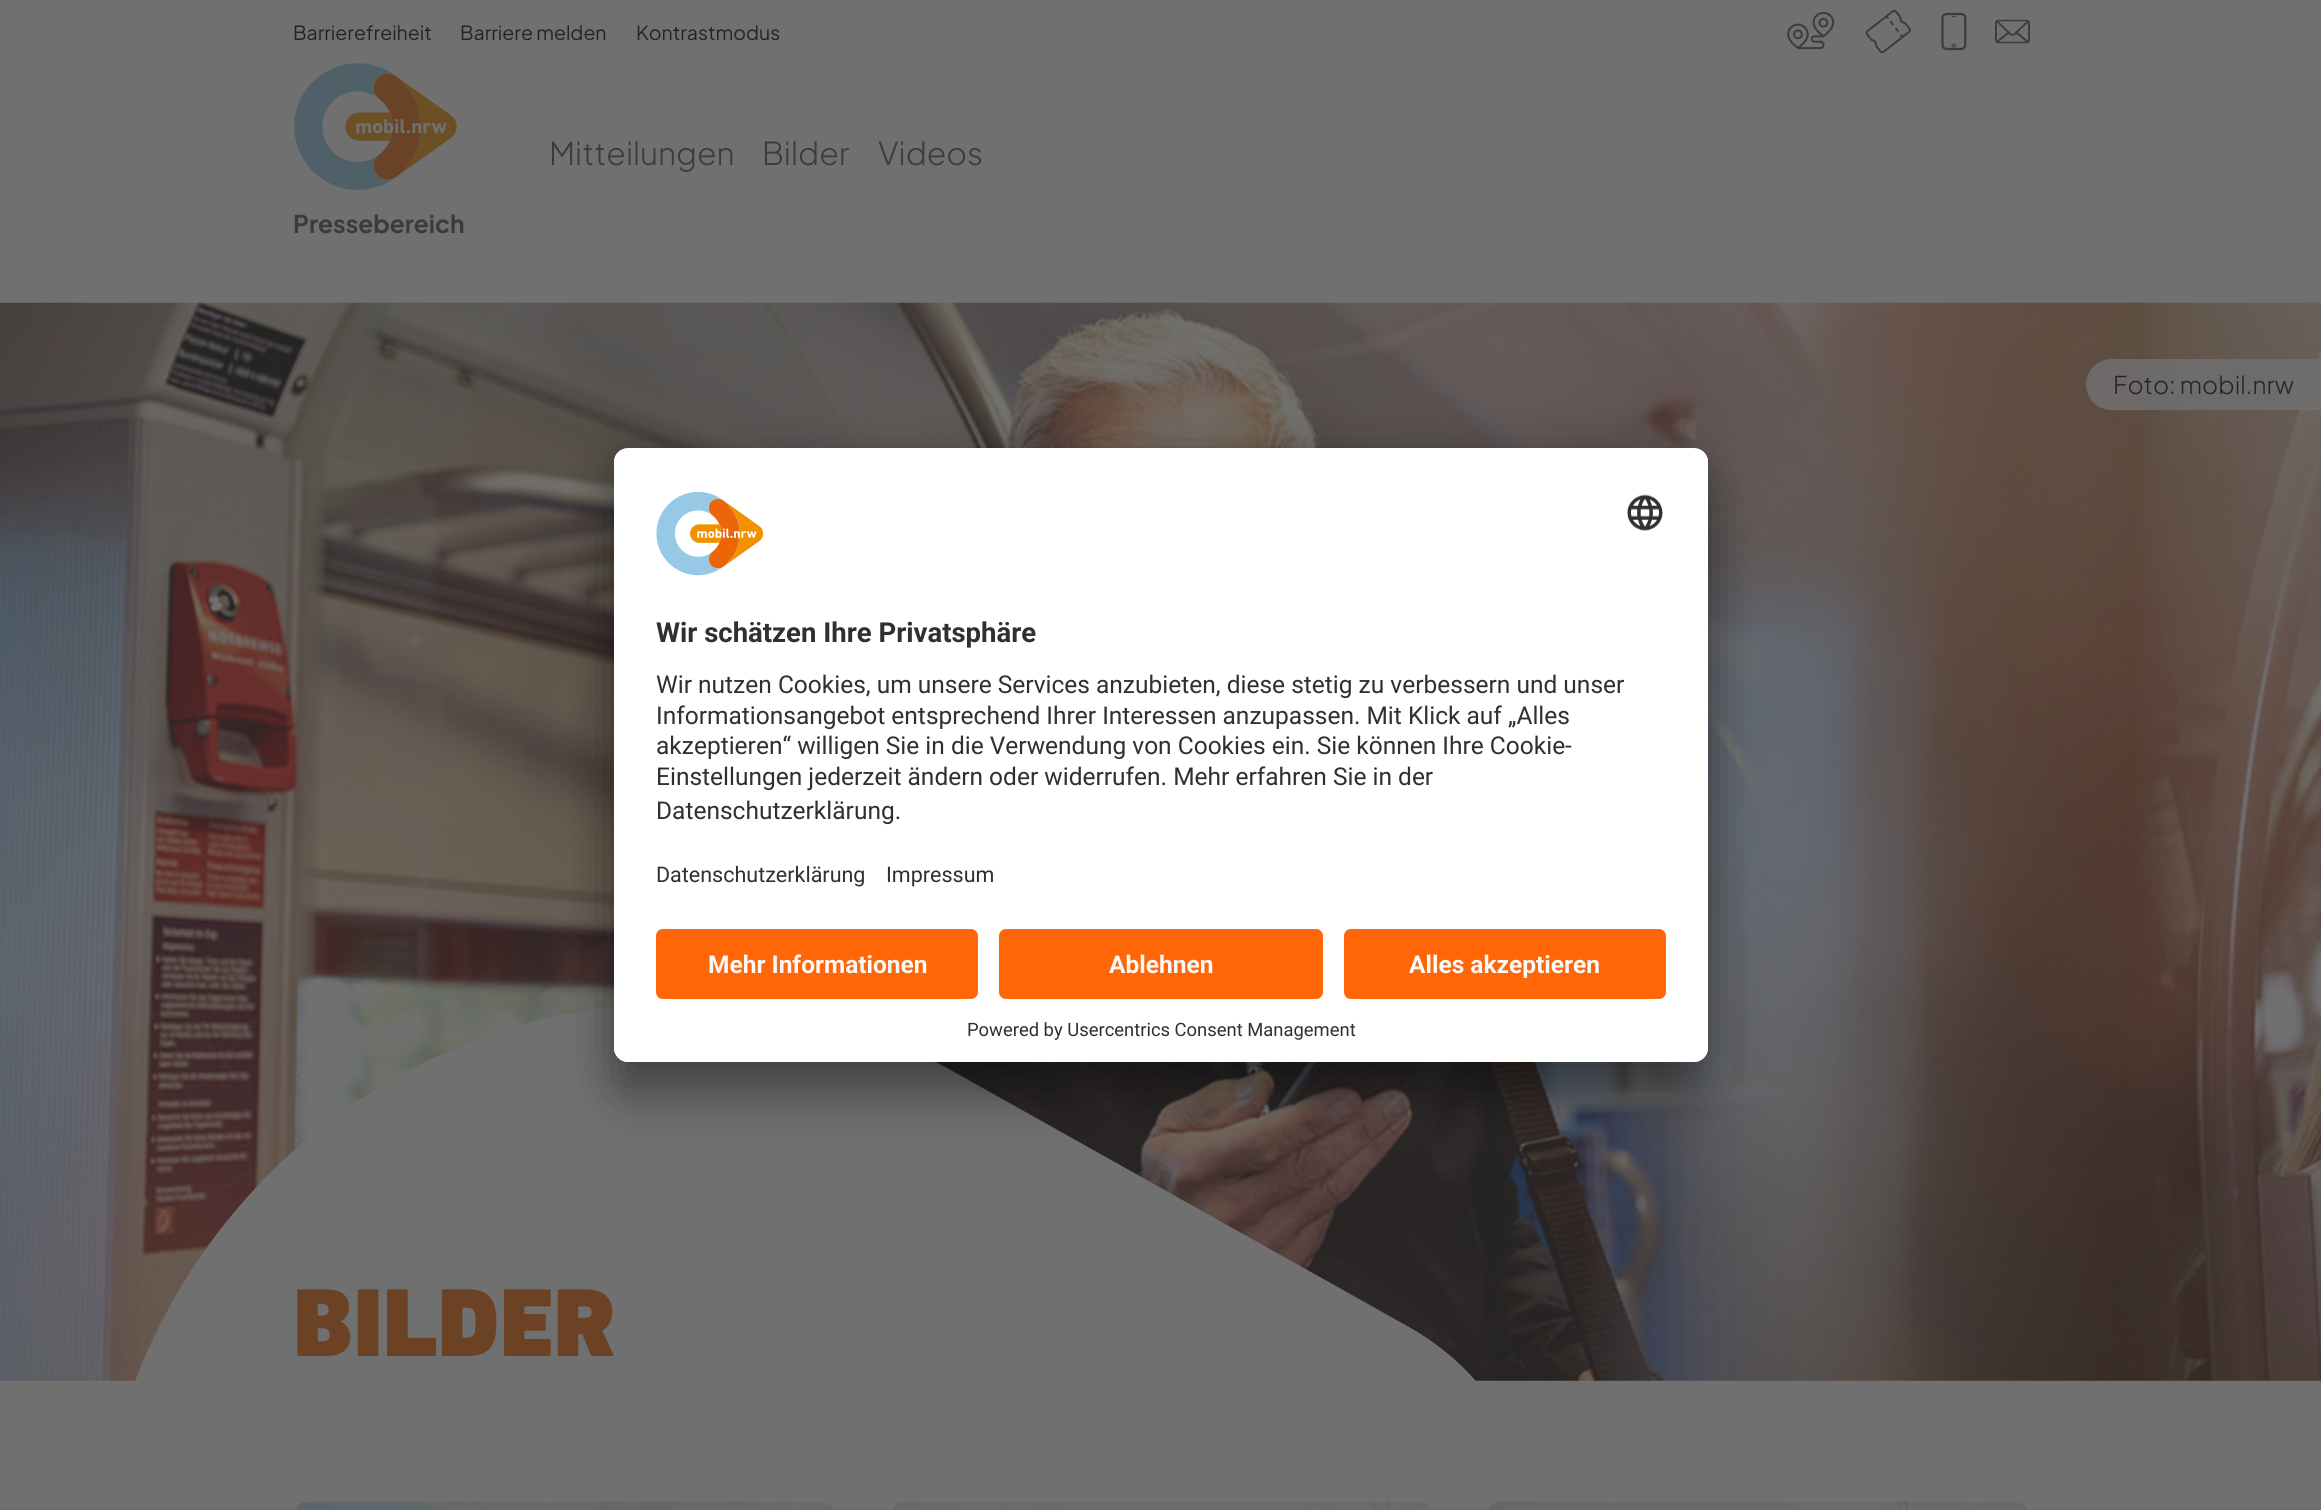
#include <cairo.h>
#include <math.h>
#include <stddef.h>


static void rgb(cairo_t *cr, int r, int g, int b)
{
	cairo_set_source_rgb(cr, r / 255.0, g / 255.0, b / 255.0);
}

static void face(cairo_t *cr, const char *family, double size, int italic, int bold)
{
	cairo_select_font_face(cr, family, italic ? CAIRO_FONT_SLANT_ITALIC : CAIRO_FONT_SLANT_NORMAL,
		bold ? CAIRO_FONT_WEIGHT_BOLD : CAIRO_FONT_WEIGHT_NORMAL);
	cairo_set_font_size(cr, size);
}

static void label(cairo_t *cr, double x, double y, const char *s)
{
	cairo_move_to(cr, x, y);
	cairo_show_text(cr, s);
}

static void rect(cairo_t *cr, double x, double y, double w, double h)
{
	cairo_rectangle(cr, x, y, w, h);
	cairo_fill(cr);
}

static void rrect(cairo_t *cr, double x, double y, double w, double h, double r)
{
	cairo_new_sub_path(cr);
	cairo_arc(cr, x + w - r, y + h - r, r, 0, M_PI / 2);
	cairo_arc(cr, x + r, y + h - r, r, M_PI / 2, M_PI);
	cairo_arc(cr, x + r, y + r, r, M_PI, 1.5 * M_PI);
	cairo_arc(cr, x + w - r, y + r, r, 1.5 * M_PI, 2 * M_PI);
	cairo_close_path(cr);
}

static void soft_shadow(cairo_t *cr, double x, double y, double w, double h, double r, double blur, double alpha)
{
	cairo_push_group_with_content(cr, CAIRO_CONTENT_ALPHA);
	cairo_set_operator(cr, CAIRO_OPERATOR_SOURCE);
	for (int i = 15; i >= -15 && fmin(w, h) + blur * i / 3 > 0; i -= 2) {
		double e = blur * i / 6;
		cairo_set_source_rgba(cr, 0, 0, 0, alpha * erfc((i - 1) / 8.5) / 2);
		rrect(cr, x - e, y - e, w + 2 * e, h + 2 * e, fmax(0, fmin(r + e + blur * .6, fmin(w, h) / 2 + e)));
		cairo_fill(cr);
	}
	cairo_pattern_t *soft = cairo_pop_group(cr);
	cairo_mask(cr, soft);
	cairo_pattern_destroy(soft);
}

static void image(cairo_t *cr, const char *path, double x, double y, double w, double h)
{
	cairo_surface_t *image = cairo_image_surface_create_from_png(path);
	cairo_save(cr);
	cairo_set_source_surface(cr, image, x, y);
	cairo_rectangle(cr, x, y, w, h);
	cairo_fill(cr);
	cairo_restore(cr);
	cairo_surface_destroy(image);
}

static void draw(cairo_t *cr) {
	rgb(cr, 112, 112, 112);
	cairo_paint(cr);
	face(cr, "Plus Jakarta Sans", 19.5, 0, 0);
	rgb(cr, 36, 36, 36);
	label(cr, 293, 40, "Barrierefreiheit");
	label(cr, 460, 40, "Barriere melden");
	label(cr, 636, 40, "Kontrastmodus");
	image(cr, "image0.png", 1787, 11, 48, 39);
	image(cr, "image1.png", 1865, 9, 46, 45);
	image(cr, "image2.png", 1941, 12, 26, 39);
	image(cr, "image3.png", 1995, 19, 35, 25);
	face(cr, "Plus Jakarta Sans Light", 31.5, 0, 0);
	rgb(cr, 54, 60, 64);
	label(cr, 549, 165, "Mitteilungen");
	label(cr, 762, 165, "Bilder");
	label(cr, 878, 165, "Videos");
	image(cr, "image4.png", 294, 63, 163, 127);
	face(cr, "Plus Jakarta Sans", 24.5, 0, 1);
	label(cr, 293, 233, "Pressebereich");
	image(cr, "image5.png", 0, 302, 2321, 1079);
	cairo_set_source_rgba(cr, 0.439, 0.439, 0.439, 0.85);
	cairo_new_path(cr);
	cairo_move_to(cr, 2111.5, 359);
	cairo_line_to(cr, 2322, 359);
	cairo_line_to(cr, 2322, 410);
	cairo_line_to(cr, 2111.5, 410);
	cairo_curve_to(cr, 2097.5, 410, 2086, 398.5, 2086, 384.5);
	cairo_curve_to(cr, 2086, 370.5, 2097.5, 359, 2111.5, 359);
	cairo_close_path(cr);
	cairo_fill(cr);
	face(cr, "Plus Jakarta Sans Light", 24.5, 0, 0);
	rgb(cr, 36, 36, 36);
	label(cr, 2113, 394, "Foto: mobil.nrw");
	rgb(cr, 112, 112, 112);
	cairo_set_fill_rule(cr, CAIRO_FILL_RULE_EVEN_ODD);
	cairo_new_path(cr);
	cairo_move_to(cr, 743, 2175);
	cairo_curve_to(cr, 422, 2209, 134, 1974, 100, 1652);
	cairo_curve_to(cr, 66, 1330, 299, 1040, 620, 1006);
	cairo_curve_to(cr, 733, 994, 847, 1015, 947, 1068);
	cairo_line_to(cr, 1409, 1327);
	cairo_curve_to(cr, 1478, 1366, 1521, 1429, 1529, 1501);
	cairo_curve_to(cr, 1536, 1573, 1507, 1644, 1447, 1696);
	cairo_line_to(cr, 1050, 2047);
	cairo_curve_to(cr, 962, 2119, 856, 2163, 743, 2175);
	cairo_close_path(cr);
	cairo_fill(cr);
	face(cr, "DIN Next Black", 98, 0, 0);
	rgb(cr, 107, 66, 36);
	label(cr, 293, 1356, "BILDER");
	image(cr, "image6.png", 295, 1501, 539, 9);
	image(cr, "image7.png", 892, 1501, 539, 9);
	image(cr, "image8.png", 1488, 1501, 539, 9);
	rgb(cr, 0, 0, 0);
	soft_shadow(cr, 614, 483, 1094, 614, 14, 24.5, 0.3);
	soft_shadow(cr, 614, 457, 1094, 614, 14, 23, 0.22);
	rgb(cr, 255, 255, 255);
	rrect(cr, 614, 448, 1094, 614, 14);
	cairo_fill(cr);
	cairo_save(cr);
	cairo_set_fill_rule(cr, CAIRO_FILL_RULE_WINDING);
	rrect(cr, 614, 448, 1094, 614, 14);
	cairo_clip(cr);
	cairo_new_path(cr);
	cairo_move_to(cr, 628, 448);
	cairo_line_to(cr, 1694, 448);
	cairo_curve_to(cr, 1701.5, 448, 1708, 454.5, 1708, 462);
	cairo_line_to(cr, 1708, 915);
	cairo_line_to(cr, 614, 915);
	cairo_line_to(cr, 614, 462);
	cairo_curve_to(cr, 614, 454.5, 620.5, 448, 628, 448);
	cairo_close_path(cr);
	cairo_clip(cr);
	rect(cr, 614, 450, 1094, 465);
	cairo_restore(cr);
	image(cr, "image9.png", 656, 492, 107, 84);
	image(cr, "image10.png", 1627, 494, 36, 37);
	face(cr, "Roboto", 27.5, 0, 1);
	rgb(cr, 48, 48, 48);
	label(cr, 656, 642, "Wir schätzen Ihre Privatsphäre");
	face(cr, "Roboto", 24.5, 0, 0);
	label(cr, 656, 693, "Wir nutzen Cookies, um unsere Services anzubieten, diese stetig zu verbessern und unser");
	label(cr, 656, 724, "Informationsangebot entsprechend Ihrer Interessen anzupassen. Mit Klick auf „Alles");
	label(cr, 656, 754, "akzeptieren“ willigen Sie in die Verwendung von Cookies ein. Sie können Ihre Cookie-");
	label(cr, 656, 785, "Einstellungen jederzeit ändern oder widerrufen. Mehr erfahren Sie in der");
	label(cr, 656, 819, "Datenschutzerklärung.");
	face(cr, "Roboto", 21.5, 0, 0);
	label(cr, 656, 882, "Datenschutzerklärung");
	label(cr, 886, 882, "Impressum");
	rgb(cr, 255, 255, 255);
	cairo_new_path(cr);
	cairo_move_to(cr, 614, 915);
	cairo_line_to(cr, 1708, 915);
	cairo_line_to(cr, 1708, 1048);
	cairo_curve_to(cr, 1708, 1055.5, 1701.5, 1062, 1694, 1062);
	cairo_line_to(cr, 628, 1062);
	cairo_curve_to(cr, 620.5, 1062, 614, 1055.5, 614, 1048);
	cairo_close_path(cr);
	cairo_fill(cr);
	rgb(cr, 255, 102, 8);
	rrect(cr, 656, 929, 322, 70, 7);
	cairo_fill(cr);
	face(cr, "Roboto", 24.5, 0, 1);
	rgb(cr, 250, 250, 250);
	label(cr, 708, 973, "Mehr Informationen");
	rgb(cr, 255, 102, 8);
	rrect(cr, 999, 929, 324, 70, 7);
	cairo_fill(cr);
	rgb(cr, 250, 250, 250);
	label(cr, 1109, 973, "Ablehnen");
	rgb(cr, 255, 102, 8);
	rrect(cr, 1344, 929, 322, 70, 7);
	cairo_fill(cr);
	rgb(cr, 250, 250, 250);
	label(cr, 1409, 973, "Alles akzeptieren");
	face(cr, "Roboto", 18.4, 0, 0);
	rgb(cr, 48, 48, 48);
	label(cr, 967, 1036, "Powered by Usercentrics Consent Management");
}

int main(void) {
	cairo_surface_t *surface = cairo_image_surface_create(CAIRO_FORMAT_RGB24, 2321, 1510);
	cairo_t *cr = cairo_create(surface);
	cairo_font_options_t *options = cairo_font_options_create();
	cairo_font_options_set_hint_metrics(options, CAIRO_HINT_METRICS_OFF);
	cairo_font_options_set_hint_style(options, CAIRO_HINT_STYLE_NONE);
	cairo_set_font_options(cr, options);
	cairo_set_miter_limit(cr, 4);
	draw(cr);
	cairo_surface_write_to_png(surface, "render.png");
	cairo_font_options_destroy(options);
	cairo_destroy(cr);
	cairo_surface_destroy(surface);
	return 0;
}
